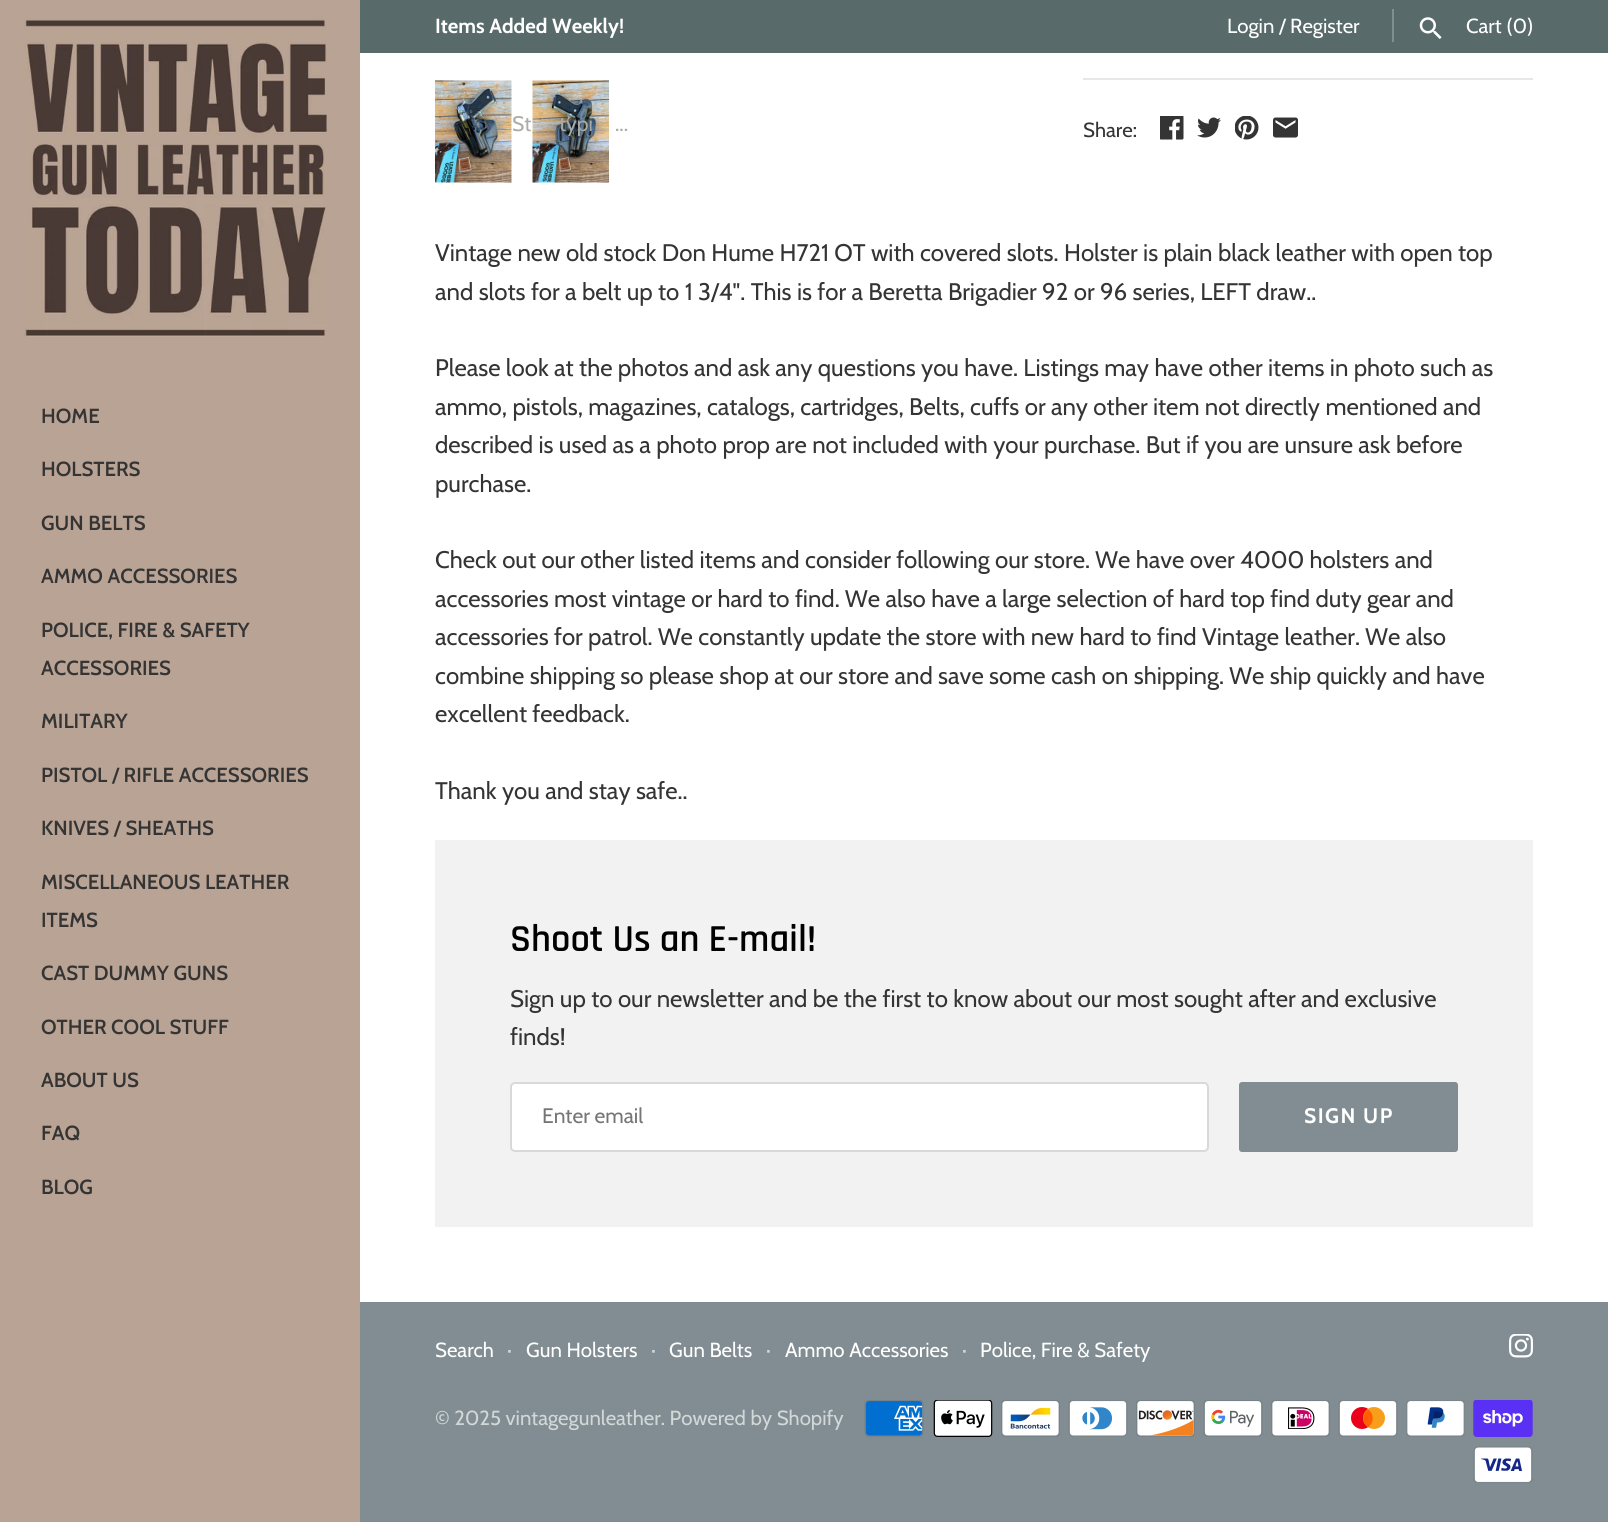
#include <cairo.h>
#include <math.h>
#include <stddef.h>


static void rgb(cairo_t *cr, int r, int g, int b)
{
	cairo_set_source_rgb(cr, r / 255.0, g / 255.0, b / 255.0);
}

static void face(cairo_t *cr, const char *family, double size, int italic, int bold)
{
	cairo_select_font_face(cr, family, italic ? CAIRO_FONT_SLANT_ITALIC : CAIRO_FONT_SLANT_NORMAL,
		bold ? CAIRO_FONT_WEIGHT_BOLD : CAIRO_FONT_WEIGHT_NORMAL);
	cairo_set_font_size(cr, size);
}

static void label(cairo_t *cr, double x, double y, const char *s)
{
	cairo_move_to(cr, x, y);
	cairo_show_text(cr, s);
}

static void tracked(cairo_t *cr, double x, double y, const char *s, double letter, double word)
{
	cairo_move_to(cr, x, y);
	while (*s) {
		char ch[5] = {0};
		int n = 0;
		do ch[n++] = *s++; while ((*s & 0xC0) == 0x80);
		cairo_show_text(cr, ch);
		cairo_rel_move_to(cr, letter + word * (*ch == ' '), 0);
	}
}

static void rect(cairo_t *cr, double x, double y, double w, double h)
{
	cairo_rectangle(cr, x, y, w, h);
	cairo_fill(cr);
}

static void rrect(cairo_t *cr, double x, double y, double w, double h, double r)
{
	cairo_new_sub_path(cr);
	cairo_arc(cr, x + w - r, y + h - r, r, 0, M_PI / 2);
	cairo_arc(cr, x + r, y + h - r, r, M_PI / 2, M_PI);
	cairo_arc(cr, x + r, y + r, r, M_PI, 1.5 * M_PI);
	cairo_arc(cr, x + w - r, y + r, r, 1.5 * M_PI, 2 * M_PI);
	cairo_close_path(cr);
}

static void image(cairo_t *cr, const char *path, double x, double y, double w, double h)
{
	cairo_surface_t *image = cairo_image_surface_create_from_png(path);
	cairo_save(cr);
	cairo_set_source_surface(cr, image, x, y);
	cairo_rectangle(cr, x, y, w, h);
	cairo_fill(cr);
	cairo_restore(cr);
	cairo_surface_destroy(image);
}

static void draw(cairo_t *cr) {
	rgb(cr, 255, 255, 255);
	cairo_paint(cr);
	rgb(cr, 88, 106, 106);
	rect(cr, 360, 0, 1248, 53);
	face(cr, "Cabin", 20.4, 0, 1);
	rgb(cr, 255, 255, 255);
	label(cr, 435, 33, "Items Added Weekly!");
	face(cr, "Cabin", 20.4, 0, 0);
	label(cr, 1227, 33, "Login / Register");
	rgb(cr, 130, 143, 143);
	rect(cr, 1392, 9, 2, 33);
	image(cr, "image0.png", 1419, 17, 23, 22);
	rgb(cr, 255, 255, 255);
	label(cr, 1466, 33, "Cart (0)");
	face(cr, "Cabin", 21, 0, 0);
	rgb(cr, 173, 171, 166);
	label(cr, 512, 131, "St");
	image(cr, "image3.png", 532, 80, 77, 103);
	label(cr, 559, 131, "typi");
	label(cr, 615, 131, "...");
	rgb(cr, 185, 163, 148);
	rect(cr, 0, 0, 360, 1522);
	image(cr, "image1.png", 23, 18, 304, 319);
	face(cr, "Cabin SemiBold", 20.4, 0, 0);
	rgb(cr, 52, 52, 52);
	label(cr, 41, 423, "HOME");
	label(cr, 41, 476, "HOLSTERS");
	label(cr, 41, 530, "GUN BELTS");
	label(cr, 41, 583, "AMMO ACCESSORIES");
	label(cr, 41, 637, "POLICE, FIRE & SAFETY");
	label(cr, 41, 675, "ACCESSORIES");
	label(cr, 41, 728, "MILITARY");
	label(cr, 41, 782, "PISTOL / RIFLE ACCESSORIES");
	label(cr, 41, 835, "KNIVES / SHEATHS");
	label(cr, 41, 889, "MISCELLANEOUS LEATHER");
	label(cr, 41, 927, "ITEMS");
	label(cr, 41, 980, "CAST DUMMY GUNS");
	label(cr, 41, 1034, "OTHER COOL STUFF");
	label(cr, 41, 1087, "ABOUT US");
	label(cr, 41, 1140, "FAQ");
	label(cr, 41, 1194, "BLOG");
	image(cr, "image2.png", 435, 80, 77, 103);
	rgb(cr, 231, 231, 231);
	rect(cr, 1083, 78, 450, 2);
	face(cr, "Cabin", 20.4, 0, 0);
	rgb(cr, 52, 52, 52);
	label(cr, 1083, 137, "Share:");
	image(cr, "image4.png", 1160, 116, 24, 24);
	image(cr, "image5.png", 1197, 117, 24, 21);
	image(cr, "image6.png", 1235, 116, 24, 24);
	image(cr, "image7.png", 1273, 117, 25, 21);
	face(cr, "Cabin", 24, 0, 0);
	label(cr, 435, 261, "Vintage new old stock Don Hume H721 OT with covered slots. Holster is plain black leather with open top");
	label(cr, 435, 300, "and slots for a belt up to 1 3/4\". This is for a Beretta Brigadier 92 or 96 series, LEFT draw..");
	label(cr, 435, 376, "Please look at the photos and ask any questions you have. Listings may have other items in photo such as");
	label(cr, 435, 415, "ammo, pistols, magazines, catalogs, cartridges, Belts, cuffs or any other item not directly mentioned and");
	label(cr, 435, 453, "described is used as a photo prop are not included with your purchase. But if you are unsure ask before");
	label(cr, 435, 492, "purchase.");
	label(cr, 435, 568, "Check out our other listed items and consider following our store. We have over 4000 holsters and");
	label(cr, 435, 607, "accessories most vintage or hard to find. We also have a large selection of hard top find duty gear and");
	label(cr, 435, 645, "accessories for patrol. We constantly update the store with new hard to find Vintage leather. We also");
	label(cr, 435, 684, "combine shipping so please shop at our store and save some cash on shipping. We ship quickly and have");
	label(cr, 435, 722, "excellent feedback.");
	label(cr, 435, 799, "Thank you and stay safe..");
	rgb(cr, 242, 242, 242);
	rect(cr, 435, 840, 1098, 387);
	face(cr, "Rajdhani SemiBold", 38.5, 0, 0);
	rgb(cr, 0, 0, 0);
	label(cr, 510, 951, "Shoot Us an E-mail!");
	face(cr, "Cabin", 24, 0, 0);
	rgb(cr, 52, 52, 52);
	label(cr, 510, 1007, "Sign up to our newsletter and be the first to know about our most sought after and exclusive");
	label(cr, 510, 1045, "finds!");
	rgb(cr, 255, 255, 255);
	rrect(cr, 510, 1082, 699, 70, 5);
	cairo_fill(cr);
	rrect(cr, 511, 1083, 697, 68, 4);
	cairo_set_source_rgba(cr, 0, 0, 0, 0.15);
	cairo_stroke(cr);
	face(cr, "Cabin", 21, 0, 0);
	rgb(cr, 117, 117, 117);
	label(cr, 542, 1123, "Enter email");
	rgb(cr, 129, 141, 146);
	rrect(cr, 1240, 1083, 217, 68, 2);
	cairo_fill_preserve(cr);
	cairo_stroke(cr);
	face(cr, "Cabin", 21, 0, 1);
	rgb(cr, 255, 255, 255);
	tracked(cr, 1304, 1123, "SIGN UP", 1.5, 0);
	rgb(cr, 129, 141, 146);
	rect(cr, 360, 1302, 1248, 220);
	face(cr, "Cabin", 20.4, 0, 0);
	rgb(cr, 255, 255, 255);
	label(cr, 435, 1357, "Search");
	rgb(cr, 210, 215, 216);
	label(cr, 507, 1357, "·");
	rgb(cr, 255, 255, 255);
	label(cr, 526, 1357, "Gun Holsters");
	rgb(cr, 210, 215, 216);
	label(cr, 651, 1357, "·");
	rgb(cr, 255, 255, 255);
	label(cr, 669, 1357, "Gun Belts");
	rgb(cr, 210, 215, 216);
	label(cr, 766, 1357, "·");
	rgb(cr, 255, 255, 255);
	label(cr, 785, 1357, "Ammo Accessories");
	rgb(cr, 210, 215, 216);
	label(cr, 962, 1357, "·");
	rgb(cr, 255, 255, 255);
	label(cr, 980, 1357, "Police, Fire & Safety");
	image(cr, "image8.png", 1509, 1334, 24, 24);
	rgb(cr, 210, 215, 216);
	label(cr, 435, 1425, "© 2025 vintagegunleather. Powered by Shopify");
	image(cr, "image9.png", 864, 1400, 60, 37);
	image(cr, "image10.png", 933, 1400, 60, 37);
	image(cr, "image11.png", 1001, 1400, 59, 37);
	image(cr, "image12.png", 1068, 1400, 60, 37);
	image(cr, "image13.png", 1136, 1400, 59, 37);
	image(cr, "image14.png", 1203, 1400, 60, 37);
	image(cr, "image15.png", 1271, 1400, 59, 37);
	image(cr, "image16.png", 1338, 1400, 60, 37);
	image(cr, "image17.png", 1406, 1400, 59, 37);
	image(cr, "image18.png", 1473, 1400, 60, 37);
	image(cr, "image19.png", 1473, 1446, 60, 37);
}

int main(void) {
	cairo_surface_t *surface = cairo_image_surface_create(CAIRO_FORMAT_RGB24, 1608, 1522);
	cairo_t *cr = cairo_create(surface);
	cairo_font_options_t *options = cairo_font_options_create();
	cairo_font_options_set_hint_metrics(options, CAIRO_HINT_METRICS_OFF);
	cairo_font_options_set_hint_style(options, CAIRO_HINT_STYLE_NONE);
	cairo_set_font_options(cr, options);
	cairo_set_miter_limit(cr, 4);
	draw(cr);
	cairo_surface_write_to_png(surface, "render.png");
	cairo_font_options_destroy(options);
	cairo_destroy(cr);
	cairo_surface_destroy(surface);
	return 0;
}
